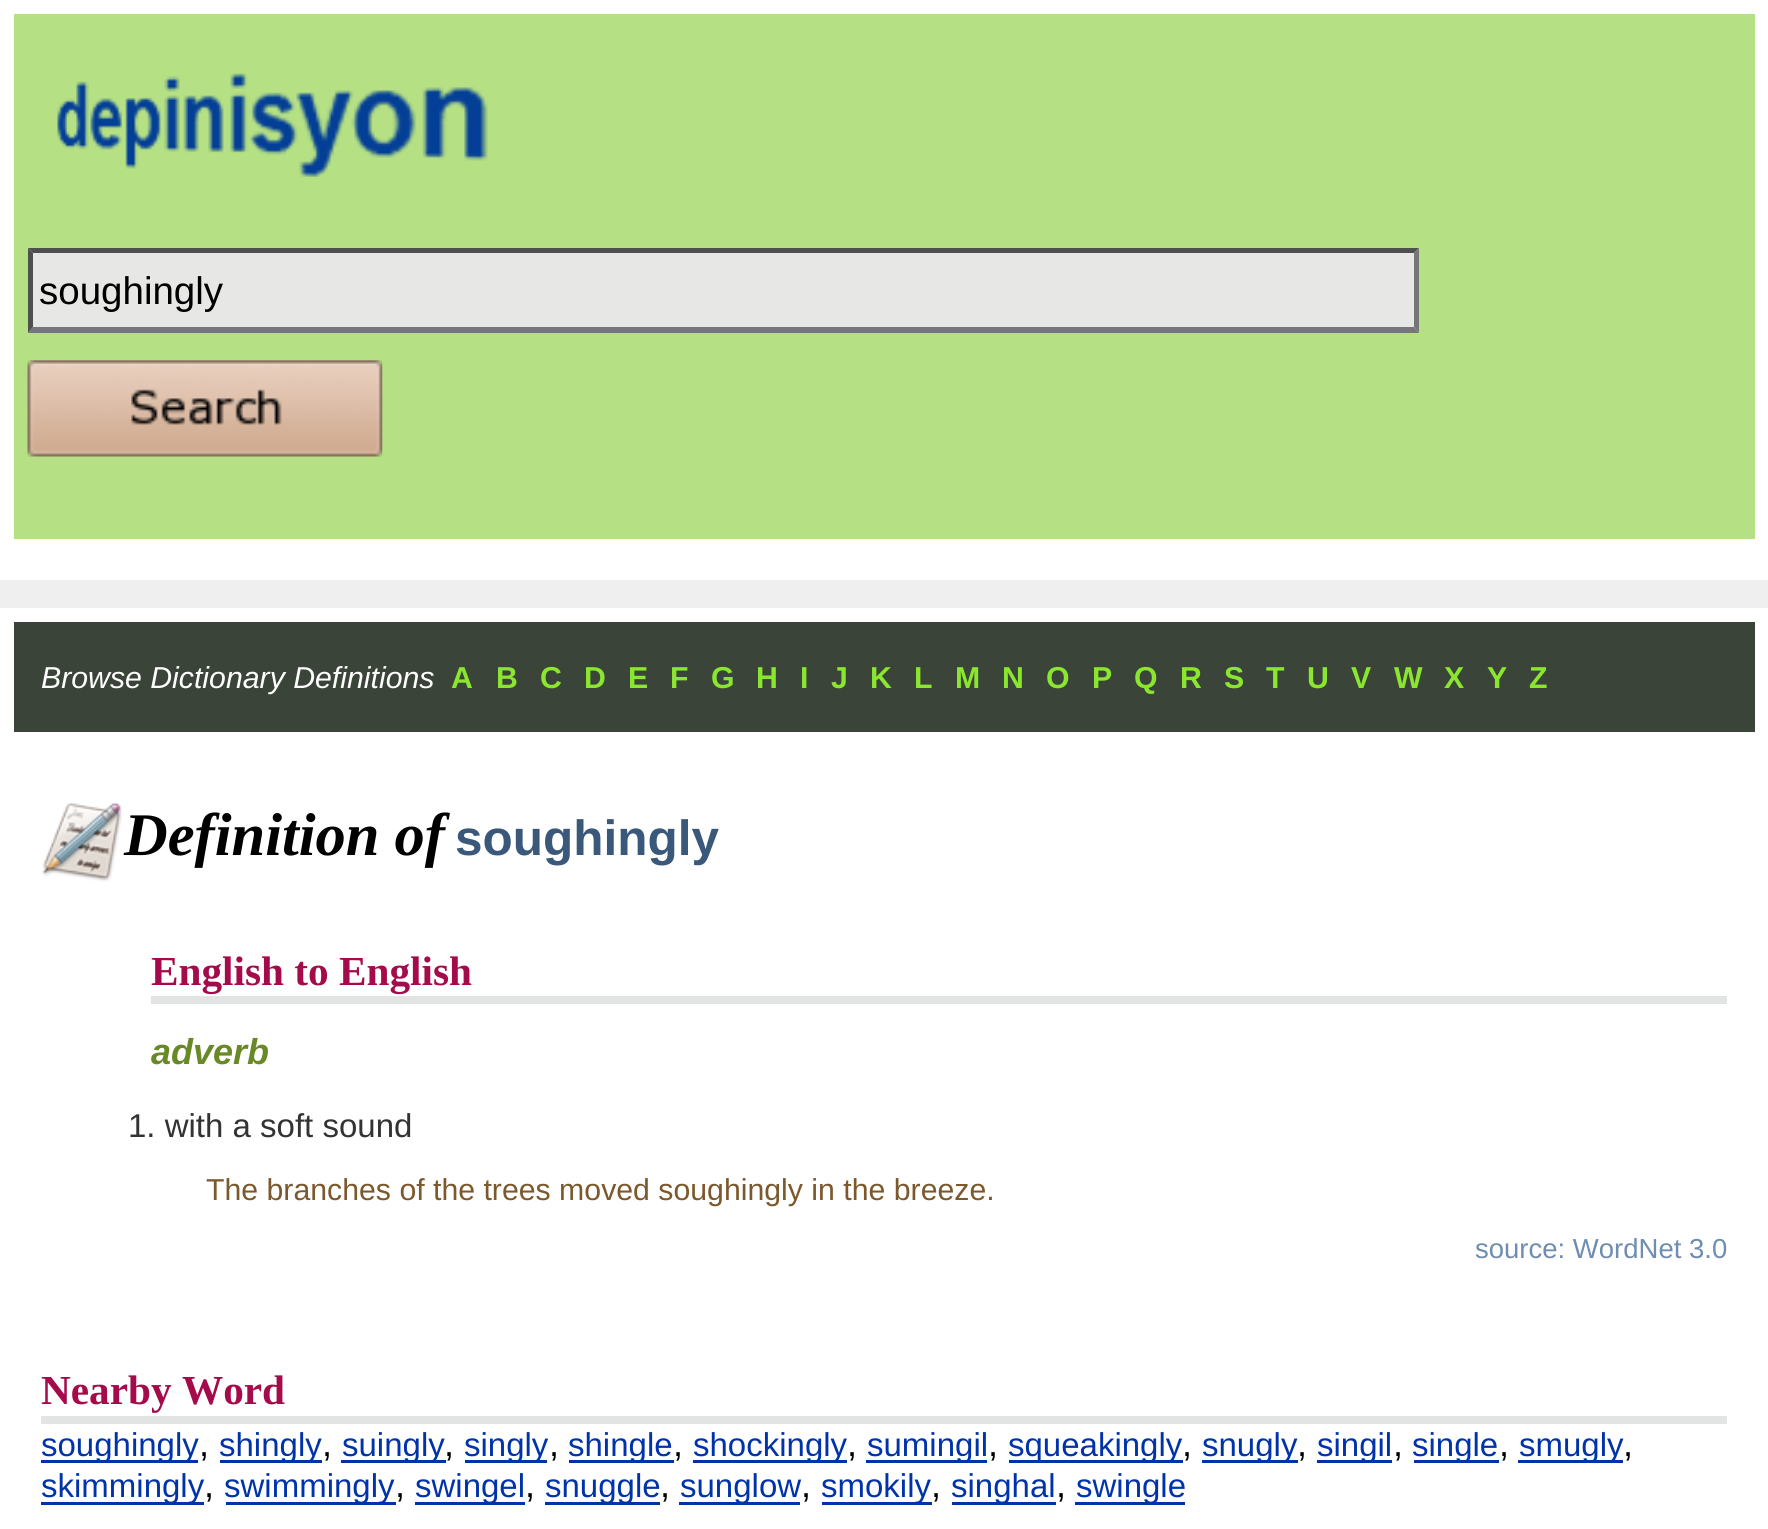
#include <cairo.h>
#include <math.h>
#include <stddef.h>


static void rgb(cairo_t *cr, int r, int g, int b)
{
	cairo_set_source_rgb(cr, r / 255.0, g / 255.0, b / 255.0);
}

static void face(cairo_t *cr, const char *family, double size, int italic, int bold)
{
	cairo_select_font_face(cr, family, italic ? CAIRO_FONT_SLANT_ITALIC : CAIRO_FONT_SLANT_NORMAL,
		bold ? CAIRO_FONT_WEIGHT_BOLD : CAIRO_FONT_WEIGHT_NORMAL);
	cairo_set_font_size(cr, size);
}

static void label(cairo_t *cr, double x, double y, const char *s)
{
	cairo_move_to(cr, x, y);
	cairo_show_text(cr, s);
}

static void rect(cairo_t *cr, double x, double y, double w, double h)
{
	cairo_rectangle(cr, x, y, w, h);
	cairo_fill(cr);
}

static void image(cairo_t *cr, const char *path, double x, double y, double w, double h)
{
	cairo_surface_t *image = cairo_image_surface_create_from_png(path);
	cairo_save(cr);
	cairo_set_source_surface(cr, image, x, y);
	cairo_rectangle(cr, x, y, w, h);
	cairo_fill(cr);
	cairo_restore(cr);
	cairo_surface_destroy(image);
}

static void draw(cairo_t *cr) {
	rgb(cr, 255, 255, 255);
	cairo_paint(cr);
	rgb(cr, 181, 224, 132);
	rect(cr, 14, 14, 1741, 525);
	image(cr, "image0.png", 57, 73, 431, 104);
	rgb(cr, 231, 231, 230);
	rect(cr, 28, 248, 1391, 85);
	rgb(cr, 79, 79, 79);
	cairo_new_path(cr);
	cairo_move_to(cr, 28, 248);
	cairo_line_to(cr, 1419, 248);
	cairo_line_to(cr, 1414, 253);
	cairo_line_to(cr, 33, 253);
	cairo_close_path(cr);
	cairo_fill(cr);
	rgb(cr, 118, 118, 118);
	cairo_new_path(cr);
	cairo_move_to(cr, 1419, 248);
	cairo_line_to(cr, 1419, 333);
	cairo_line_to(cr, 1414, 327);
	cairo_line_to(cr, 1414, 253);
	cairo_close_path(cr);
	cairo_fill(cr);
	cairo_new_path(cr);
	cairo_move_to(cr, 1419, 333);
	cairo_line_to(cr, 28, 333);
	cairo_line_to(cr, 33, 327);
	cairo_line_to(cr, 1414, 327);
	cairo_close_path(cr);
	cairo_fill(cr);
	rgb(cr, 79, 79, 79);
	cairo_new_path(cr);
	cairo_move_to(cr, 28, 333);
	cairo_line_to(cr, 28, 248);
	cairo_line_to(cr, 33, 253);
	cairo_line_to(cr, 33, 327);
	cairo_close_path(cr);
	cairo_fill(cr);
	face(cr, "Liberation Sans", 38.5, 0, 0);
	rgb(cr, 0, 0, 0);
	label(cr, 39, 304, "soughingly");
	image(cr, "image1.png", 27, 360, 356, 97);
	rgb(cr, 239, 239, 239);
	rect(cr, 0, 580, 1768, 28);
	rgb(cr, 59, 68, 56);
	rect(cr, 14, 622, 1741, 110);
	face(cr, "Liberation Sans", 30.25, 1, 0);
	rgb(cr, 255, 255, 255);
	label(cr, 41, 688, "Browse Dictionary Definitions");
	face(cr, "Liberation Sans", 30.25, 0, 1);
	rgb(cr, 138, 230, 46);
	label(cr, 451, 688, "A");
	label(cr, 496, 688, "B");
	label(cr, 540, 688, "C");
	label(cr, 584, 688, "D");
	label(cr, 628, 688, "E");
	label(cr, 670, 688, "F");
	label(cr, 711, 688, "G");
	label(cr, 756, 688, "H");
	label(cr, 800, 688, "I");
	label(cr, 831, 688, "J");
	label(cr, 870, 688, "K");
	label(cr, 914, 688, "L");
	label(cr, 955, 688, "M");
	label(cr, 1002, 688, "N");
	label(cr, 1046, 688, "O");
	label(cr, 1092, 688, "P");
	label(cr, 1134, 688, "Q");
	label(cr, 1180, 688, "R");
	label(cr, 1224, 688, "S");
	label(cr, 1266, 688, "T");
	label(cr, 1307, 688, "U");
	label(cr, 1351, 688, "V");
	label(cr, 1394, 688, "W");
	label(cr, 1444, 688, "X");
	label(cr, 1487, 688, "Y");
	label(cr, 1529, 688, "Z");
	image(cr, "image2.png", 42, 802, 81, 80);
	face(cr, "Liberation Serif", 60.5, 1, 1);
	rgb(cr, 0, 0, 0);
	label(cr, 124, 855, "Definition of");
	face(cr, "Liberation Sans", 49.5, 0, 1);
	rgb(cr, 58, 89, 122);
	label(cr, 455, 855, "soughingly");
	rgb(cr, 226, 227, 227);
	rect(cr, 151, 996, 1576, 8);
	face(cr, "Liberation Serif", 41.25, 0, 1);
	rgb(cr, 165, 11, 74);
	label(cr, 151, 985, "English to English");
	face(cr, "Liberation Sans", 36, 1, 1);
	rgb(cr, 105, 137, 40);
	label(cr, 151, 1064, "adverb");
	face(cr, "Liberation Sans", 33, 0, 0);
	rgb(cr, 51, 51, 51);
	label(cr, 128, 1137, "1. with a soft sound");
	face(cr, "Liberation Sans", 30.25, 0, 0);
	rgb(cr, 124, 88, 45);
	label(cr, 206, 1200, "The branches of the trees moved soughingly in the breeze.");
	face(cr, "Liberation Sans", 27.5, 0, 0);
	rgb(cr, 110, 141, 176);
	label(cr, 1475, 1258, "source: WordNet 3.0");
	rgb(cr, 226, 227, 227);
	rect(cr, 41, 1416, 1686, 8);
	face(cr, "Liberation Serif", 41.25, 0, 1);
	rgb(cr, 165, 11, 74);
	label(cr, 41, 1404, "Nearby Word");
	rgb(cr, 0, 51, 170);
	rect(cr, 41, 1460, 157, 3);
	face(cr, "Liberation Sans", 33, 0, 0);
	label(cr, 41, 1456, "soughingly");
	face(cr, "Liberation Sans", 36, 0, 0);
	rgb(cr, 0, 0, 0);
	label(cr, 199, 1456, ",");
	rgb(cr, 0, 51, 170);
	rect(cr, 220, 1460, 102, 3);
	face(cr, "Liberation Sans", 33, 0, 0);
	label(cr, 219, 1456, "shingly");
	face(cr, "Liberation Sans", 36, 0, 0);
	rgb(cr, 0, 0, 0);
	label(cr, 322, 1456, ",");
	rgb(cr, 0, 51, 170);
	rect(cr, 341, 1460, 105, 3);
	face(cr, "Liberation Sans", 33, 0, 0);
	label(cr, 342, 1456, "suingly");
	face(cr, "Liberation Sans", 36, 0, 0);
	rgb(cr, 0, 0, 0);
	label(cr, 444, 1456, ",");
	rgb(cr, 0, 51, 170);
	rect(cr, 465, 1460, 82, 3);
	face(cr, "Liberation Sans", 33, 0, 0);
	label(cr, 464, 1456, "singly");
	face(cr, "Liberation Sans", 36, 0, 0);
	rgb(cr, 0, 0, 0);
	label(cr, 549, 1456, ",");
	rgb(cr, 0, 51, 170);
	rect(cr, 569, 1460, 105, 3);
	face(cr, "Liberation Sans", 33, 0, 0);
	label(cr, 568, 1456, "shingle");
	face(cr, "Liberation Sans", 36, 0, 0);
	rgb(cr, 0, 0, 0);
	label(cr, 673, 1456, ",");
	rgb(cr, 0, 51, 170);
	rect(cr, 693, 1460, 154, 3);
	face(cr, "Liberation Sans", 33, 0, 0);
	label(cr, 693, 1456, "shockingly");
	face(cr, "Liberation Sans", 36, 0, 0);
	rgb(cr, 0, 0, 0);
	label(cr, 847, 1456, ",");
	rgb(cr, 0, 51, 170);
	rect(cr, 866, 1460, 121, 3);
	face(cr, "Liberation Sans", 33, 0, 0);
	label(cr, 867, 1456, "sumingil");
	face(cr, "Liberation Sans", 36, 0, 0);
	rgb(cr, 0, 0, 0);
	label(cr, 988, 1456, ",");
	rgb(cr, 0, 51, 170);
	rect(cr, 1009, 1460, 174, 3);
	face(cr, "Liberation Sans", 33, 0, 0);
	label(cr, 1008, 1456, "squeakingly");
	face(cr, "Liberation Sans", 36, 0, 0);
	rgb(cr, 0, 0, 0);
	label(cr, 1182, 1456, ",");
	rgb(cr, 0, 51, 170);
	rect(cr, 1202, 1460, 96, 3);
	face(cr, "Liberation Sans", 33, 0, 0);
	label(cr, 1202, 1456, "snugly");
	face(cr, "Liberation Sans", 36, 0, 0);
	rgb(cr, 0, 0, 0);
	label(cr, 1297, 1456, ",");
	rgb(cr, 0, 51, 170);
	rect(cr, 1317, 1460, 75, 3);
	face(cr, "Liberation Sans", 33, 0, 0);
	label(cr, 1317, 1456, "singil");
	face(cr, "Liberation Sans", 36, 0, 0);
	rgb(cr, 0, 0, 0);
	label(cr, 1393, 1456, ",");
	rgb(cr, 0, 51, 170);
	rect(cr, 1414, 1460, 85, 3);
	face(cr, "Liberation Sans", 33, 0, 0);
	label(cr, 1412, 1456, "single");
	face(cr, "Liberation Sans", 36, 0, 0);
	rgb(cr, 0, 0, 0);
	label(cr, 1499, 1456, ",");
	rgb(cr, 0, 51, 170);
	rect(cr, 1518, 1460, 105, 3);
	face(cr, "Liberation Sans", 33, 0, 0);
	label(cr, 1519, 1456, "smugly");
	face(cr, "Liberation Sans", 36, 0, 0);
	rgb(cr, 0, 0, 0);
	label(cr, 1623, 1456, ",");
	rgb(cr, 0, 51, 170);
	rect(cr, 41, 1502, 163, 3);
	face(cr, "Liberation Sans", 33, 0, 0);
	label(cr, 41, 1497, "skimmingly");
	face(cr, "Liberation Sans", 36, 0, 0);
	rgb(cr, 0, 0, 0);
	label(cr, 204, 1497, ",");
	rgb(cr, 0, 51, 170);
	rect(cr, 226, 1502, 170, 3);
	face(cr, "Liberation Sans", 33, 0, 0);
	label(cr, 224, 1497, "swimmingly");
	face(cr, "Liberation Sans", 36, 0, 0);
	rgb(cr, 0, 0, 0);
	label(cr, 395, 1497, ",");
	rgb(cr, 0, 51, 170);
	rect(cr, 415, 1502, 110, 3);
	face(cr, "Liberation Sans", 33, 0, 0);
	label(cr, 415, 1497, "swingel");
	face(cr, "Liberation Sans", 36, 0, 0);
	rgb(cr, 0, 0, 0);
	label(cr, 525, 1497, ",");
	rgb(cr, 0, 51, 170);
	rect(cr, 545, 1502, 115, 3);
	face(cr, "Liberation Sans", 33, 0, 0);
	label(cr, 545, 1497, "snuggle");
	face(cr, "Liberation Sans", 36, 0, 0);
	rgb(cr, 0, 0, 0);
	label(cr, 660, 1497, ",");
	rgb(cr, 0, 51, 170);
	rect(cr, 679, 1502, 121, 3);
	face(cr, "Liberation Sans", 33, 0, 0);
	label(cr, 680, 1497, "sunglow");
	face(cr, "Liberation Sans", 36, 0, 0);
	rgb(cr, 0, 0, 0);
	label(cr, 801, 1497, ",");
	rgb(cr, 0, 51, 170);
	rect(cr, 822, 1502, 110, 3);
	face(cr, "Liberation Sans", 33, 0, 0);
	label(cr, 821, 1497, "smokily");
	face(cr, "Liberation Sans", 36, 0, 0);
	rgb(cr, 0, 0, 0);
	label(cr, 931, 1497, ",");
	rgb(cr, 0, 51, 170);
	rect(cr, 952, 1502, 104, 3);
	face(cr, "Liberation Sans", 33, 0, 0);
	label(cr, 951, 1497, "singhal");
	face(cr, "Liberation Sans", 36, 0, 0);
	rgb(cr, 0, 0, 0);
	label(cr, 1056, 1497, ",");
	rgb(cr, 0, 51, 170);
	rect(cr, 1075, 1502, 110, 3);
	face(cr, "Liberation Sans", 33, 0, 0);
	label(cr, 1076, 1497, "swingle");
}

int main(void) {
	cairo_surface_t *surface = cairo_image_surface_create(CAIRO_FORMAT_RGB24, 1768, 1529);
	cairo_t *cr = cairo_create(surface);
	cairo_font_options_t *options = cairo_font_options_create();
	cairo_font_options_set_hint_metrics(options, CAIRO_HINT_METRICS_OFF);
	cairo_font_options_set_hint_style(options, CAIRO_HINT_STYLE_NONE);
	cairo_set_font_options(cr, options);
	cairo_set_miter_limit(cr, 4);
	draw(cr);
	cairo_surface_write_to_png(surface, "render.png");
	cairo_font_options_destroy(options);
	cairo_destroy(cr);
	cairo_surface_destroy(surface);
	return 0;
}
